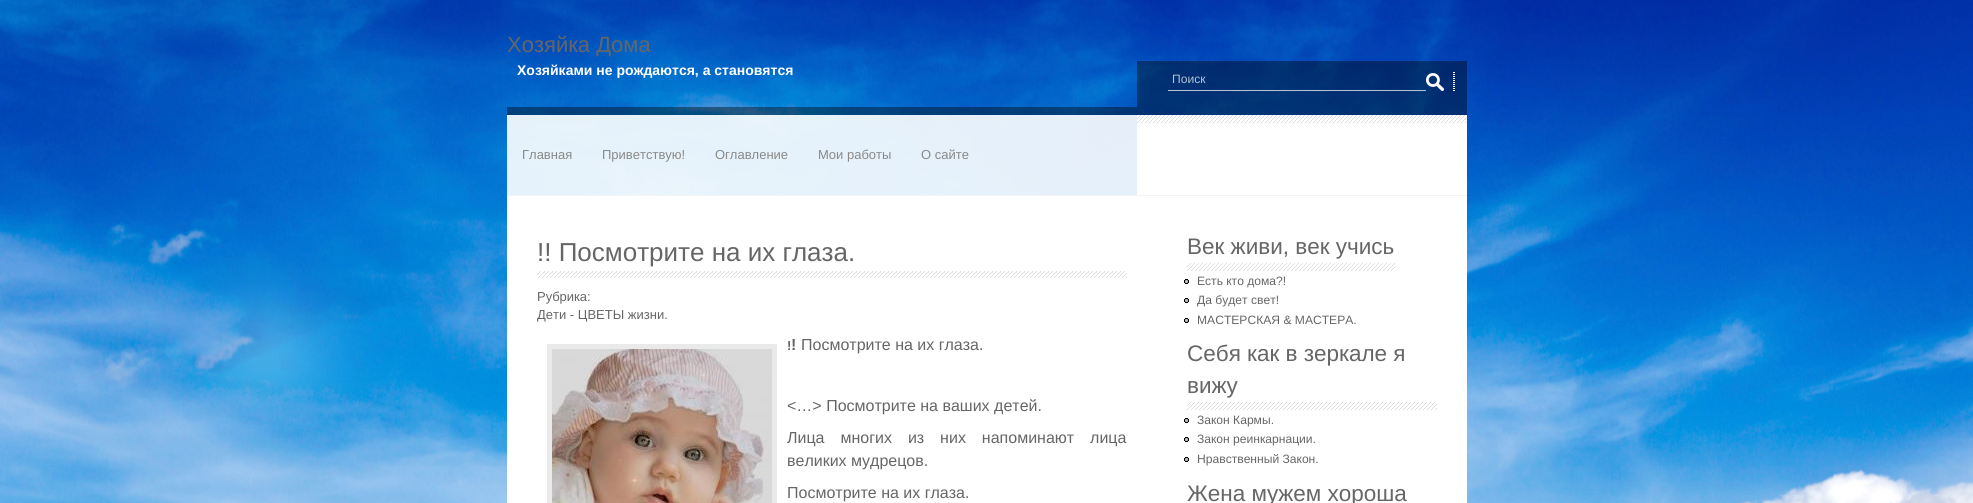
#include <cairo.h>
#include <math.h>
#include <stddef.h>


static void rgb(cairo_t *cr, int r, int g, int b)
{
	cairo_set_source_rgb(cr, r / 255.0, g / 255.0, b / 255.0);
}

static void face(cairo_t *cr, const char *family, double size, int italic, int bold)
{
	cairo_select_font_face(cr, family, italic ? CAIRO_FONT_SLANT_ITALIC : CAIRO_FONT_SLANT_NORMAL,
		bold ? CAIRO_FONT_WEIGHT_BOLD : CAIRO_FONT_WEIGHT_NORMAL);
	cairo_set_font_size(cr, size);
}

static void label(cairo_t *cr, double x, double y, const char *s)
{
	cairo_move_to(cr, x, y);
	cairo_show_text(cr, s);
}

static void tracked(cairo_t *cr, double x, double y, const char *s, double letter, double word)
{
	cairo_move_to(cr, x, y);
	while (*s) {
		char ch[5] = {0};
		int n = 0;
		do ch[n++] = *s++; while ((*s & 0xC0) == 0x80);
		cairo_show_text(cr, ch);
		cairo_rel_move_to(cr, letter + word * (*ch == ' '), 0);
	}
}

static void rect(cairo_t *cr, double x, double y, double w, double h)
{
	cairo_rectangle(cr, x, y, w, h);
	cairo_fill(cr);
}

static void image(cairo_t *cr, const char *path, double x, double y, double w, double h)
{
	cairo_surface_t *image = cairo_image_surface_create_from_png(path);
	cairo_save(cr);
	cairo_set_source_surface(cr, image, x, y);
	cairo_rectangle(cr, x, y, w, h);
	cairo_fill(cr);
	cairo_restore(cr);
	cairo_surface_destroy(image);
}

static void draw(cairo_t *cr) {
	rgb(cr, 255, 255, 255);
	cairo_paint(cr);
	image(cr, "image0.png", 0, 0, 1973, 503);
	face(cr, "Liberation Sans", 22, 0, 0);
	rgb(cr, 102, 102, 102);
	label(cr, 507, 52, "Хозяйка Дома");
	face(cr, "Liberation Sans", 14, 0, 1);
	rgb(cr, 255, 255, 255);
	label(cr, 517, 75, "Хозяйками не рождаются, а становятся");
	cairo_set_source_rgba(cr, 0, 0, 0, 0.4);
	rect(cr, 1137, 61, 330, 46);
	cairo_set_source_rgba(cr, 1, 1, 1, 0.7);
	rect(cr, 1168, 90, 258, 1);
	face(cr, "Liberation Sans", 12.1, 0, 0);
	rgb(cr, 179, 192, 213);
	label(cr, 1172, 83, "Поиск");
	image(cr, "image1.png", 1426, 73, 18, 18);
	image(cr, "image2.png", 1453, 72, 2, 19);
	cairo_set_source_rgba(cr, 0, 0, 0, 0.4);
	rect(cr, 507, 107, 960, 8);
	cairo_set_source_rgba(cr, 1, 1, 1, 0.9);
	rect(cr, 507, 115, 630, 80);
	face(cr, "Liberation Sans", 13, 0, 0);
	rgb(cr, 137, 137, 137);
	label(cr, 522, 159, "Главная");
	label(cr, 602, 159, "Приветствую!");
	label(cr, 715, 159, "Оглавление");
	label(cr, 818, 159, "Мои работы");
	label(cr, 921, 159, "О сайте");
	rgb(cr, 255, 255, 255);
	rect(cr, 1137, 115, 330, 80);
	image(cr, "image3.png", 1137, 115, 330, 8);
	rect(cr, 507, 196, 960, 307);
	rgb(cr, 244, 244, 244);
	rect(cr, 507, 195, 960, 1);
	image(cr, "image4.png", 537, 271, 590, 7);
	face(cr, "Liberation Sans", 26, 0, 0);
	rgb(cr, 102, 102, 102);
	label(cr, 537, 261, "!! Посмотрите на их глаза.");
	face(cr, "Liberation Sans", 13, 0, 0);
	label(cr, 537, 301, "Рубрика:");
	label(cr, 537, 319, "Дети - ЦВЕТЫ жизни.");
	cairo_rectangle(cr, 549.5, 346.5, 225, 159);
	rgb(cr, 234, 234, 234);
	cairo_set_line_width(cr, 5);
	cairo_stroke(cr);
	image(cr, "image5.png", 552, 349, 220, 154);
	face(cr, "Liberation Sans", 13, 0, 1);
	rgb(cr, 102, 102, 102);
	label(cr, 787, 350, "!");
	face(cr, "Liberation Sans", 16, 0, 1);
	label(cr, 791, 350, "!");
	face(cr, "Liberation Sans", 16, 0, 0);
	label(cr, 801, 350, "Посмотрите на их глаза.");
	label(cr, 787, 411, "<…> Посмотрите на ваших детей.");
	tracked(cr, 787, 443, "Лица многих из них напоминают лица", 0, 11.5);
	label(cr, 787, 466, "великих мудрецов.");
	label(cr, 787, 498, "Посмотрите на их глаза.");
	face(cr, "Liberation Sans", 22.5, 0, 0);
	label(cr, 1187, 254, "Век живи, век учись");
	image(cr, "image6.png", 1187, 263, 208, 8);
	image(cr, "image7.png", 1184, 279, 5, 5);
	face(cr, "Liberation Sans", 12.1, 0, 0);
	label(cr, 1197, 285, "Есть кто дома?!");
	image(cr, "image7.png", 1184, 298, 5, 5);
	label(cr, 1197, 304, "Да будет свет!");
	image(cr, "image7.png", 1184, 318, 5, 5);
	label(cr, 1197, 324, "МАСТЕРСКАЯ & МАСТЕРА.");
	face(cr, "Liberation Sans", 22.5, 0, 0);
	label(cr, 1187, 361, "Себя как в зеркале я");
	label(cr, 1187, 393, "вижу");
	image(cr, "image8.png", 1187, 402, 250, 8);
	image(cr, "image7.png", 1184, 418, 5, 5);
	face(cr, "Liberation Sans", 12.1, 0, 0);
	label(cr, 1197, 424, "Закон Кармы.");
	image(cr, "image7.png", 1184, 437, 5, 5);
	label(cr, 1197, 443, "Закон реинкарнации.");
	image(cr, "image7.png", 1184, 457, 5, 5);
	label(cr, 1197, 463, "Нравственный Закон.");
	face(cr, "Liberation Sans", 22.5, 0, 0);
	label(cr, 1187, 501, "Жена мужем хороша");
}

int main(void) {
	cairo_surface_t *surface = cairo_image_surface_create(CAIRO_FORMAT_RGB24, 1973, 503);
	cairo_t *cr = cairo_create(surface);
	cairo_font_options_t *options = cairo_font_options_create();
	cairo_font_options_set_hint_metrics(options, CAIRO_HINT_METRICS_OFF);
	cairo_font_options_set_hint_style(options, CAIRO_HINT_STYLE_NONE);
	cairo_set_font_options(cr, options);
	cairo_set_miter_limit(cr, 4);
	draw(cr);
	cairo_surface_write_to_png(surface, "render.png");
	cairo_font_options_destroy(options);
	cairo_destroy(cr);
	cairo_surface_destroy(surface);
	return 0;
}
